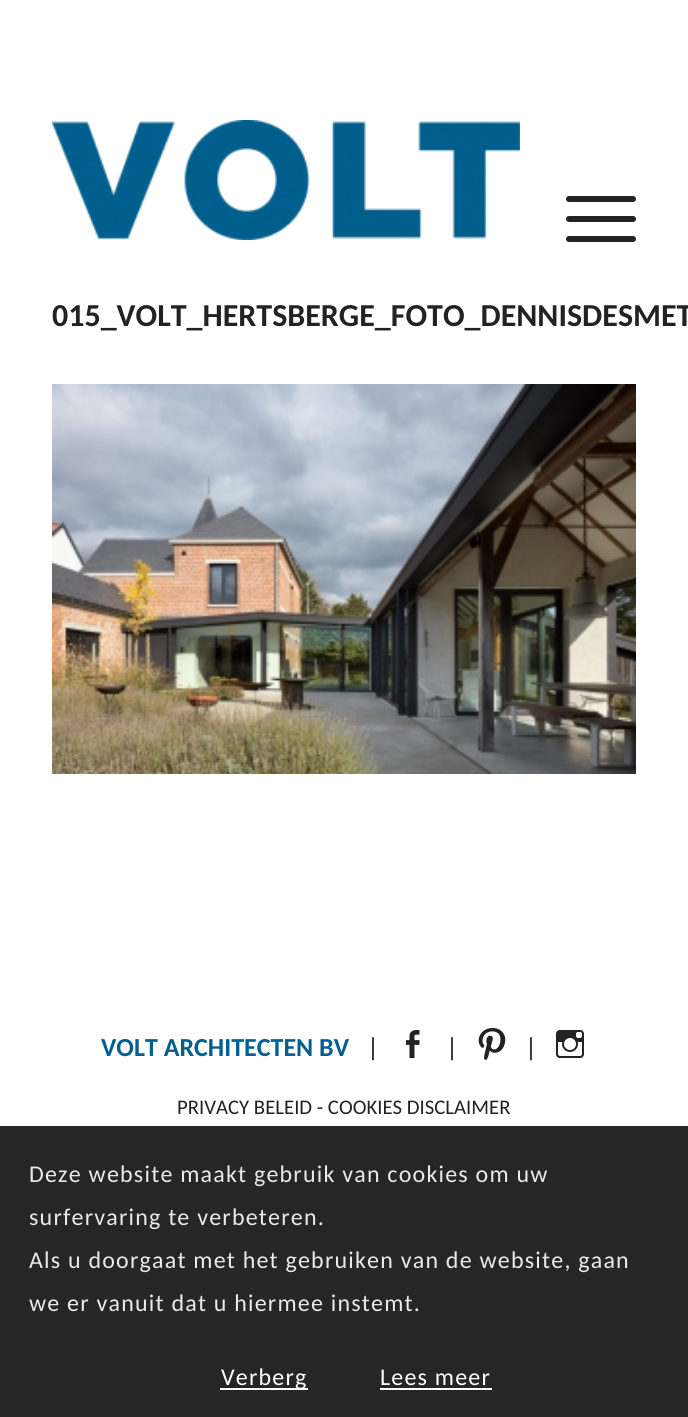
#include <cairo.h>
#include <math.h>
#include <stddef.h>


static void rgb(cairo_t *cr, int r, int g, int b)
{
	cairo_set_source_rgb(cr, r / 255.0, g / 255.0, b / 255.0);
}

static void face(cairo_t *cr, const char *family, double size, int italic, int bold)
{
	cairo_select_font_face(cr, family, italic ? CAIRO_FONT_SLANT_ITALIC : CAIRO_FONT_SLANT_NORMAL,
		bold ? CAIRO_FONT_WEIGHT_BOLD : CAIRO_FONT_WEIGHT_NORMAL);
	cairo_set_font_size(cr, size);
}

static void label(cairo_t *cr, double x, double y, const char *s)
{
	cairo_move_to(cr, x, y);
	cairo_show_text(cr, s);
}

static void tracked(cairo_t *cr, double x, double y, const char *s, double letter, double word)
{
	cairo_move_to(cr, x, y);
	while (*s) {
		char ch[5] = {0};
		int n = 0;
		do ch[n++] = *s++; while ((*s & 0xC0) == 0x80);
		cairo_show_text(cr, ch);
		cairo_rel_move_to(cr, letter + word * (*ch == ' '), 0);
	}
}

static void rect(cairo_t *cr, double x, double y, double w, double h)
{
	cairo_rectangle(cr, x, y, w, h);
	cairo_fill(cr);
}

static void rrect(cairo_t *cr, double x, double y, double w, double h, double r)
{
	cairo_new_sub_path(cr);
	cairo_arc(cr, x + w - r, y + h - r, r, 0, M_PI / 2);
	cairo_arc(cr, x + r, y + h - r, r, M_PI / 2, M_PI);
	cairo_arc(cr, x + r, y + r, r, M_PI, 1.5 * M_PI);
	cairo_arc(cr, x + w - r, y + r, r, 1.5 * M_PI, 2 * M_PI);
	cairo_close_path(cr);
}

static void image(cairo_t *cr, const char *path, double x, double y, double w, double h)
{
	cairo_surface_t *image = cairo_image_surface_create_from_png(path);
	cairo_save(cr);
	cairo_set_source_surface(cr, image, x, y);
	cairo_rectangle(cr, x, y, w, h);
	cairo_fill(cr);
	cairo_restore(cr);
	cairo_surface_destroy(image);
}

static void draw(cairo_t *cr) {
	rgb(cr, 255, 255, 255);
	cairo_paint(cr);
	image(cr, "image0.png", 52, 120, 468, 120);
	rgb(cr, 34, 34, 34);
	rrect(cr, 566, 216, 70, 6, 3);
	cairo_fill(cr);
	rrect(cr, 566, 196, 70, 6, 3);
	cairo_fill(cr);
	rrect(cr, 566, 236, 70, 6, 3);
	cairo_fill(cr);
	face(cr, "Carlito", 32, 0, 1);
	label(cr, 52, 326, "015_VOLT_HERTSBERGE_FOTO_DENNISDESMET");
	image(cr, "image1.png", 52, 384, 584, 390);
	face(cr, "Carlito", 26, 0, 1);
	rgb(cr, 0, 95, 142);
	label(cr, 101, 1056, "VOLT ARCHITECTEN BV");
	face(cr, "Carlito", 26, 0, 0);
	rgb(cr, 34, 34, 34);
	label(cr, 367, 1056, "|");
	image(cr, "image2.png", 406, 1030, 14, 28);
	label(cr, 446, 1056, "|");
	image(cr, "image3.png", 478, 1028, 28, 32);
	label(cr, 525, 1056, "|");
	image(cr, "image4.png", 556, 1030, 28, 28);
	face(cr, "Carlito", 20.75, 0, 0);
	label(cr, 177, 1114, "PRIVACY BELEID - COOKIES DISCLAIMER");
	rgb(cr, 38, 38, 38);
	rect(cr, 0, 1126, 688, 291);
	face(cr, "Carlito", 24, 0, 0);
	rgb(cr, 233, 233, 233);
	tracked(cr, 29, 1182, "Deze website maakt gebruik van cookies om uw", 1.2, 0);
	tracked(cr, 29, 1225, "surfervaring te verbeteren.", 1.2, 0);
	tracked(cr, 29, 1268, "Als u doorgaat met het gebruiken van de website, gaan", 1.2, 0);
	tracked(cr, 29, 1311, "we er vanuit dat u hiermee instemt.", 1.2, 0);
	rgb(cr, 255, 255, 255);
	rect(cr, 220, 1388, 88, 2);
	tracked(cr, 221, 1385, "Verberg", 1.2, 0);
	tracked(cr, 380, 1385, "Lees meer", 1.2, 0);
	rect(cr, 380, 1388, 112, 2);
}

int main(void) {
	cairo_surface_t *surface = cairo_image_surface_create(CAIRO_FORMAT_RGB24, 688, 1417);
	cairo_t *cr = cairo_create(surface);
	cairo_font_options_t *options = cairo_font_options_create();
	cairo_font_options_set_hint_metrics(options, CAIRO_HINT_METRICS_OFF);
	cairo_font_options_set_hint_style(options, CAIRO_HINT_STYLE_NONE);
	cairo_set_font_options(cr, options);
	cairo_set_miter_limit(cr, 4);
	draw(cr);
	cairo_surface_write_to_png(surface, "render.png");
	cairo_font_options_destroy(options);
	cairo_destroy(cr);
	cairo_surface_destroy(surface);
	return 0;
}
